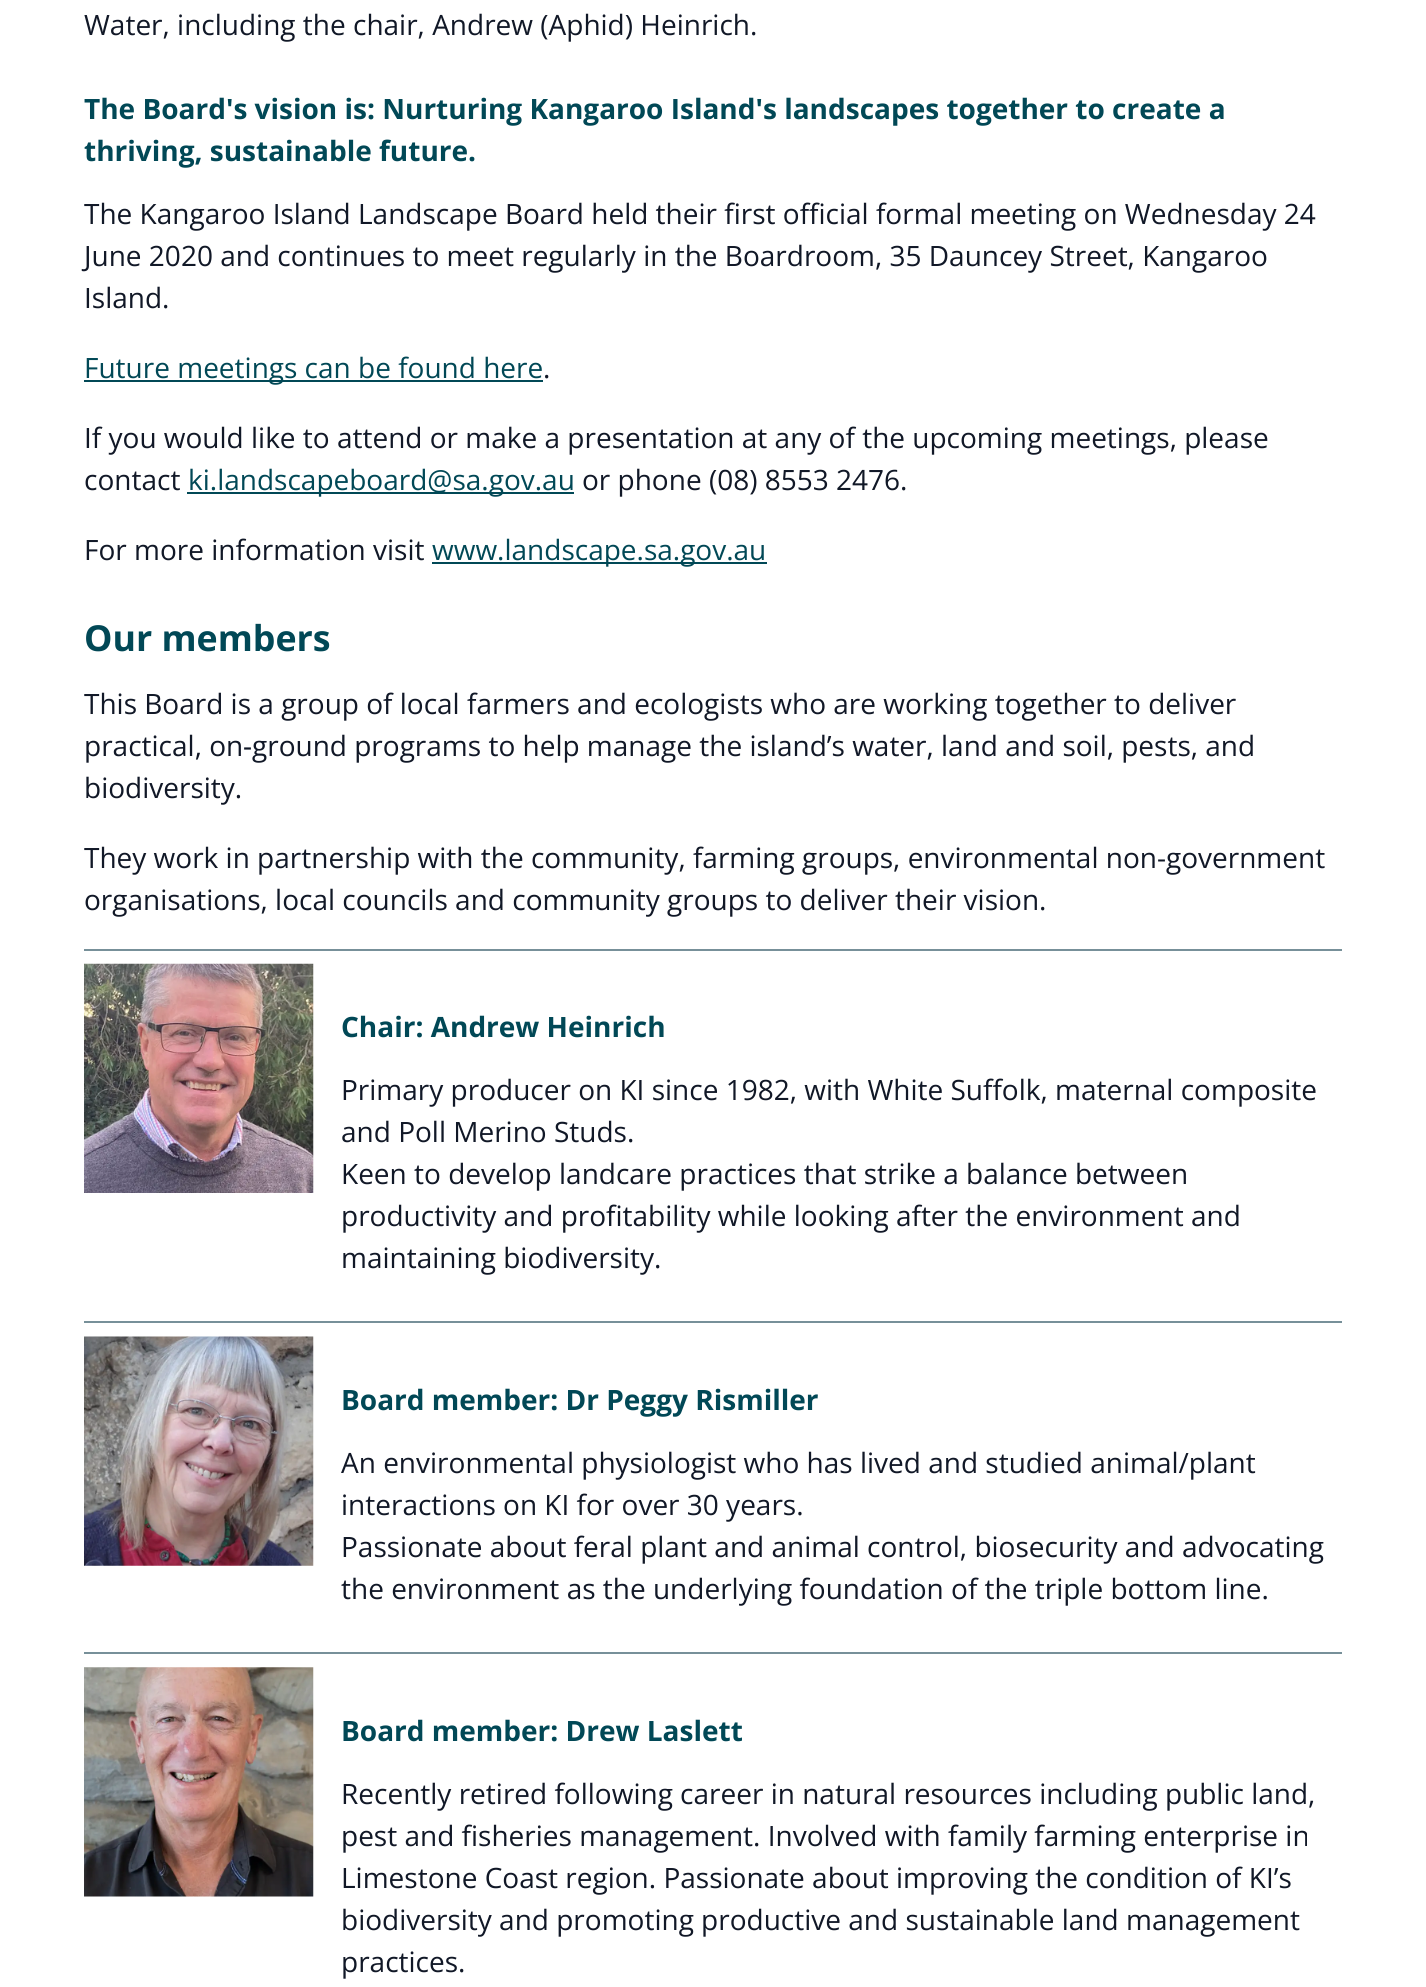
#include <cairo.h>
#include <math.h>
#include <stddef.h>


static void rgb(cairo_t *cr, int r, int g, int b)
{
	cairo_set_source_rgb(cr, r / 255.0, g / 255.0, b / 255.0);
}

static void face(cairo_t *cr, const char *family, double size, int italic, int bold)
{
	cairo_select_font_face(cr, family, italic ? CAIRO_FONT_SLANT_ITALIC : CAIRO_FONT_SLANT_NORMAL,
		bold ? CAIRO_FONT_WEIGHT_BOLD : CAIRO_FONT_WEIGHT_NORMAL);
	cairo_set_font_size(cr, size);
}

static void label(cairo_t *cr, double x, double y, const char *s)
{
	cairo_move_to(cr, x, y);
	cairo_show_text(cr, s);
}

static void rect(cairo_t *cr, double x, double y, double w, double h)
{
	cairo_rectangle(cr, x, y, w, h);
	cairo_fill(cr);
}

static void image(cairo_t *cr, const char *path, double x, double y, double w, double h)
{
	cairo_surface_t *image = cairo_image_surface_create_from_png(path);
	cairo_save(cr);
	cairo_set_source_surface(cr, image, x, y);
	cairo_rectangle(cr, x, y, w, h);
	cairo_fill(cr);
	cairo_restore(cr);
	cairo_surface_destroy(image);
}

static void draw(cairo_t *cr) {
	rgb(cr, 255, 255, 255);
	cairo_paint(cr);
	face(cr, "Open Sans", 28, 0, 0);
	rgb(cr, 17, 24, 39);
	label(cr, 84, 35, "Water, including the chair, Andrew (Aphid) Heinrich.");
	face(cr, "Open Sans", 28, 0, 1);
	rgb(cr, 1, 72, 86);
	label(cr, 84, 119, "The Board's vision is: Nurturing Kangaroo Island's landscapes together to create a");
	label(cr, 84, 161, "thriving, sustainable future.");
	face(cr, "Open Sans", 28, 0, 0);
	rgb(cr, 17, 24, 39);
	label(cr, 84, 224, "The Kangaroo Island Landscape Board held their first official formal meeting on Wednesday 24");
	label(cr, 84, 266, "June 2020 and continues to meet regularly in the Boardroom, 35 Dauncey Street, Kangaroo");
	label(cr, 84, 308, "Island.");
	rgb(cr, 1, 72, 86);
	rect(cr, 84, 380, 459, 2);
	label(cr, 84, 378, "Future meetings can be found here");
	rgb(cr, 17, 24, 39);
	label(cr, 543, 378, ".");
	label(cr, 84, 448, "If you would like to attend or make a presentation at any of the upcoming meetings, please");
	label(cr, 84, 490, "contact");
	rgb(cr, 1, 72, 86);
	rect(cr, 187, 492, 387, 2);
	label(cr, 188, 490, "ki.landscapeboard@sa.gov.au");
	rgb(cr, 17, 24, 39);
	label(cr, 582, 490, "or phone (08) 8553 2476.");
	label(cr, 84, 560, "For more information visit");
	rgb(cr, 1, 72, 86);
	rect(cr, 432, 562, 335, 2);
	label(cr, 432, 560, "www.landscape.sa.gov.au");
	face(cr, "Open Sans", 35.75, 0, 1);
	label(cr, 84, 651, "Our members");
	face(cr, "Open Sans", 28, 0, 0);
	rgb(cr, 17, 24, 39);
	label(cr, 84, 714, "This Board is a group of local farmers and ecologists who are working together to deliver");
	label(cr, 84, 756, "practical, on");
	face(cr, "Noto Sans", 28, 0, 0);
	label(cr, 243, 756, "‑");
	face(cr, "Open Sans", 28, 0, 0);
	label(cr, 252, 756, "ground programs to help manage the island’s water, land and soil, pests, and");
	label(cr, 84, 798, "biodiversity.");
	label(cr, 84, 868, "They work in partnership with the community, farming groups, environmental non-government");
	label(cr, 84, 910, "organisations, local councils and community groups to deliver their vision.");
	rgb(cr, 119, 144, 153);
	rect(cr, 84, 949, 1258, 2);
	image(cr, "image0.png", 84, 963, 230, 230);
	face(cr, "Open Sans", 28, 0, 1);
	rgb(cr, 1, 72, 86);
	label(cr, 341, 1037, "Chair: Andrew Heinrich");
	face(cr, "Open Sans", 28, 0, 0);
	rgb(cr, 17, 24, 39);
	label(cr, 341, 1100, "Primary producer on KI since 1982, with White Suffolk, maternal composite");
	label(cr, 341, 1142, "and Poll Merino Studs.");
	label(cr, 341, 1184, "Keen to develop landcare practices that strike a balance between");
	label(cr, 341, 1226, "productivity and profitability while looking after the environment and");
	label(cr, 341, 1268, "maintaining biodiversity.");
	rgb(cr, 119, 144, 153);
	rect(cr, 84, 1321, 1258, 2);
	image(cr, "image1.png", 84, 1336, 230, 230);
	face(cr, "Open Sans", 28, 0, 1);
	rgb(cr, 1, 72, 86);
	label(cr, 341, 1410, "Board member: Dr Peggy Rismiller");
	face(cr, "Open Sans", 28, 0, 0);
	rgb(cr, 17, 24, 39);
	label(cr, 341, 1473, "An environmental physiologist who has lived and studied animal/plant");
	label(cr, 341, 1515, "interactions on KI for over 30 years.");
	label(cr, 341, 1557, "Passionate about feral plant and animal control, biosecurity and advocating");
	label(cr, 341, 1599, "the environment as the underlying foundation of the triple bottom line.");
	rgb(cr, 119, 144, 153);
	rect(cr, 84, 1652, 1258, 2);
	image(cr, "image2.png", 84, 1667, 230, 230);
	face(cr, "Open Sans", 28, 0, 1);
	rgb(cr, 1, 72, 86);
	label(cr, 341, 1741, "Board member: Drew Laslett");
	face(cr, "Open Sans", 28, 0, 0);
	rgb(cr, 17, 24, 39);
	label(cr, 341, 1804, "Recently retired following career in natural resources including public land,");
	label(cr, 341, 1846, "pest and fisheries management. Involved with family farming enterprise in");
	label(cr, 341, 1888, "Limestone Coast region. Passionate about improving the condition of KI’s");
	label(cr, 341, 1930, "biodiversity and promoting productive and sustainable land management");
	label(cr, 341, 1972, "practices.");
}

int main(void) {
	cairo_surface_t *surface = cairo_image_surface_create(CAIRO_FORMAT_RGB24, 1426, 1987);
	cairo_t *cr = cairo_create(surface);
	cairo_font_options_t *options = cairo_font_options_create();
	cairo_font_options_set_hint_metrics(options, CAIRO_HINT_METRICS_OFF);
	cairo_font_options_set_hint_style(options, CAIRO_HINT_STYLE_NONE);
	cairo_set_font_options(cr, options);
	cairo_set_miter_limit(cr, 4);
	draw(cr);
	cairo_surface_write_to_png(surface, "render.png");
	cairo_font_options_destroy(options);
	cairo_destroy(cr);
	cairo_surface_destroy(surface);
	return 0;
}
